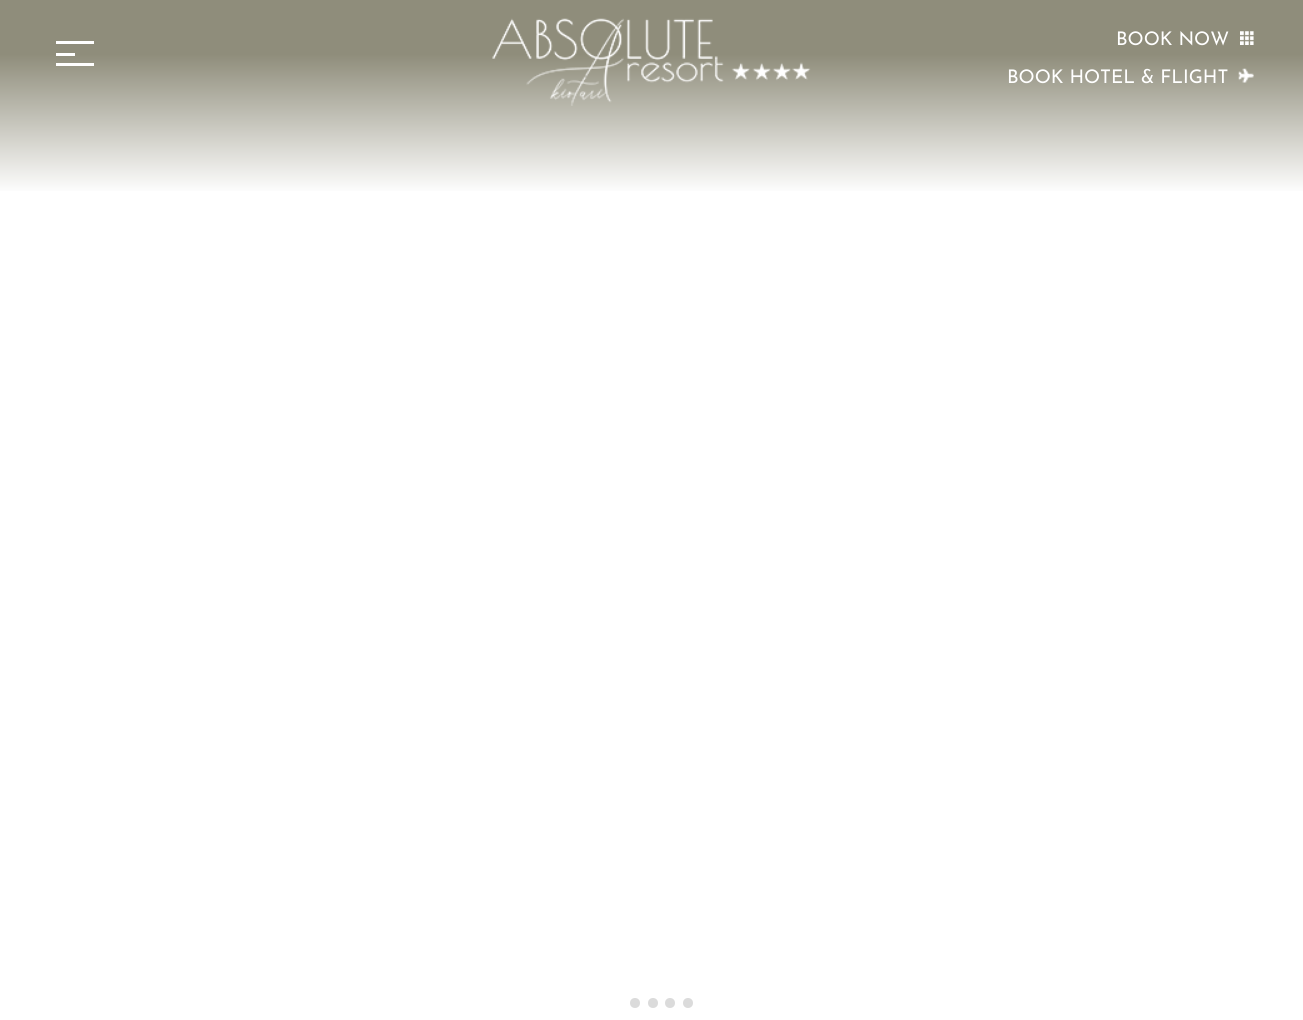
#include <cairo.h>
#include <math.h>
#include <stddef.h>


static void rgb(cairo_t *cr, int r, int g, int b)
{
	cairo_set_source_rgb(cr, r / 255.0, g / 255.0, b / 255.0);
}

static void face(cairo_t *cr, const char *family, double size, int italic, int bold)
{
	cairo_select_font_face(cr, family, italic ? CAIRO_FONT_SLANT_ITALIC : CAIRO_FONT_SLANT_NORMAL,
		bold ? CAIRO_FONT_WEIGHT_BOLD : CAIRO_FONT_WEIGHT_NORMAL);
	cairo_set_font_size(cr, size);
}

static void label(cairo_t *cr, double x, double y, const char *s)
{
	cairo_move_to(cr, x, y);
	cairo_show_text(cr, s);
}

static void rect(cairo_t *cr, double x, double y, double w, double h)
{
	cairo_rectangle(cr, x, y, w, h);
	cairo_fill(cr);
}

static void image(cairo_t *cr, const char *path, double x, double y, double w, double h)
{
	cairo_surface_t *image = cairo_image_surface_create_from_png(path);
	cairo_save(cr);
	cairo_set_source_surface(cr, image, x, y);
	cairo_rectangle(cr, x, y, w, h);
	cairo_fill(cr);
	cairo_restore(cr);
	cairo_surface_destroy(image);
}

static void draw(cairo_t *cr) {
	cairo_pattern_t *gradient;
	rgb(cr, 255, 255, 255);
	cairo_paint(cr);
	gradient = cairo_pattern_create_linear(652, 0, 652, 194);
	cairo_pattern_add_color_stop_rgba(gradient, 0.28, 0.561, 0.553, 0.482, 1);
	cairo_pattern_add_color_stop_rgba(gradient, 1, 1, 1, 1, 1);
	cairo_set_source(cr, gradient);
	cairo_pattern_destroy(gradient);
	rect(cr, 0, 0, 1303, 191);
	rgb(cr, 255, 255, 255);
	rect(cr, 56, 41, 38, 3);
	rect(cr, 56, 53, 19, 3);
	rect(cr, 56, 63, 38, 3);
	image(cr, "image0.png", 492, 18, 319, 88);
	image(cr, "image1.png", 1240, 31, 14, 14);
	face(cr, "Josefin Sans", 18.75, 0, 0);
	label(cr, 1116, 45, "BOOK NOW");
	image(cr, "image2.png", 1238, 68, 16, 15);
	label(cr, 1007, 83, "BOOK HOTEL & FLIGHT");
	rgb(cr, 219, 219, 219);
	cairo_new_path(cr);
	cairo_arc(cr, 635, 1003, 5, 0, 2 * M_PI);
	cairo_fill(cr);
	cairo_arc(cr, 653, 1003, 5, 0, 2 * M_PI);
	cairo_fill(cr);
	cairo_arc(cr, 670, 1003, 5, 0, 2 * M_PI);
	cairo_fill(cr);
	cairo_arc(cr, 688, 1003, 5, 0, 2 * M_PI);
	cairo_fill(cr);
}

int main(void) {
	cairo_surface_t *surface = cairo_image_surface_create(CAIRO_FORMAT_RGB24, 1303, 1020);
	cairo_t *cr = cairo_create(surface);
	cairo_font_options_t *options = cairo_font_options_create();
	cairo_font_options_set_hint_metrics(options, CAIRO_HINT_METRICS_OFF);
	cairo_font_options_set_hint_style(options, CAIRO_HINT_STYLE_NONE);
	cairo_set_font_options(cr, options);
	cairo_set_miter_limit(cr, 4);
	draw(cr);
	cairo_surface_write_to_png(surface, "render.png");
	cairo_font_options_destroy(options);
	cairo_destroy(cr);
	cairo_surface_destroy(surface);
	return 0;
}
